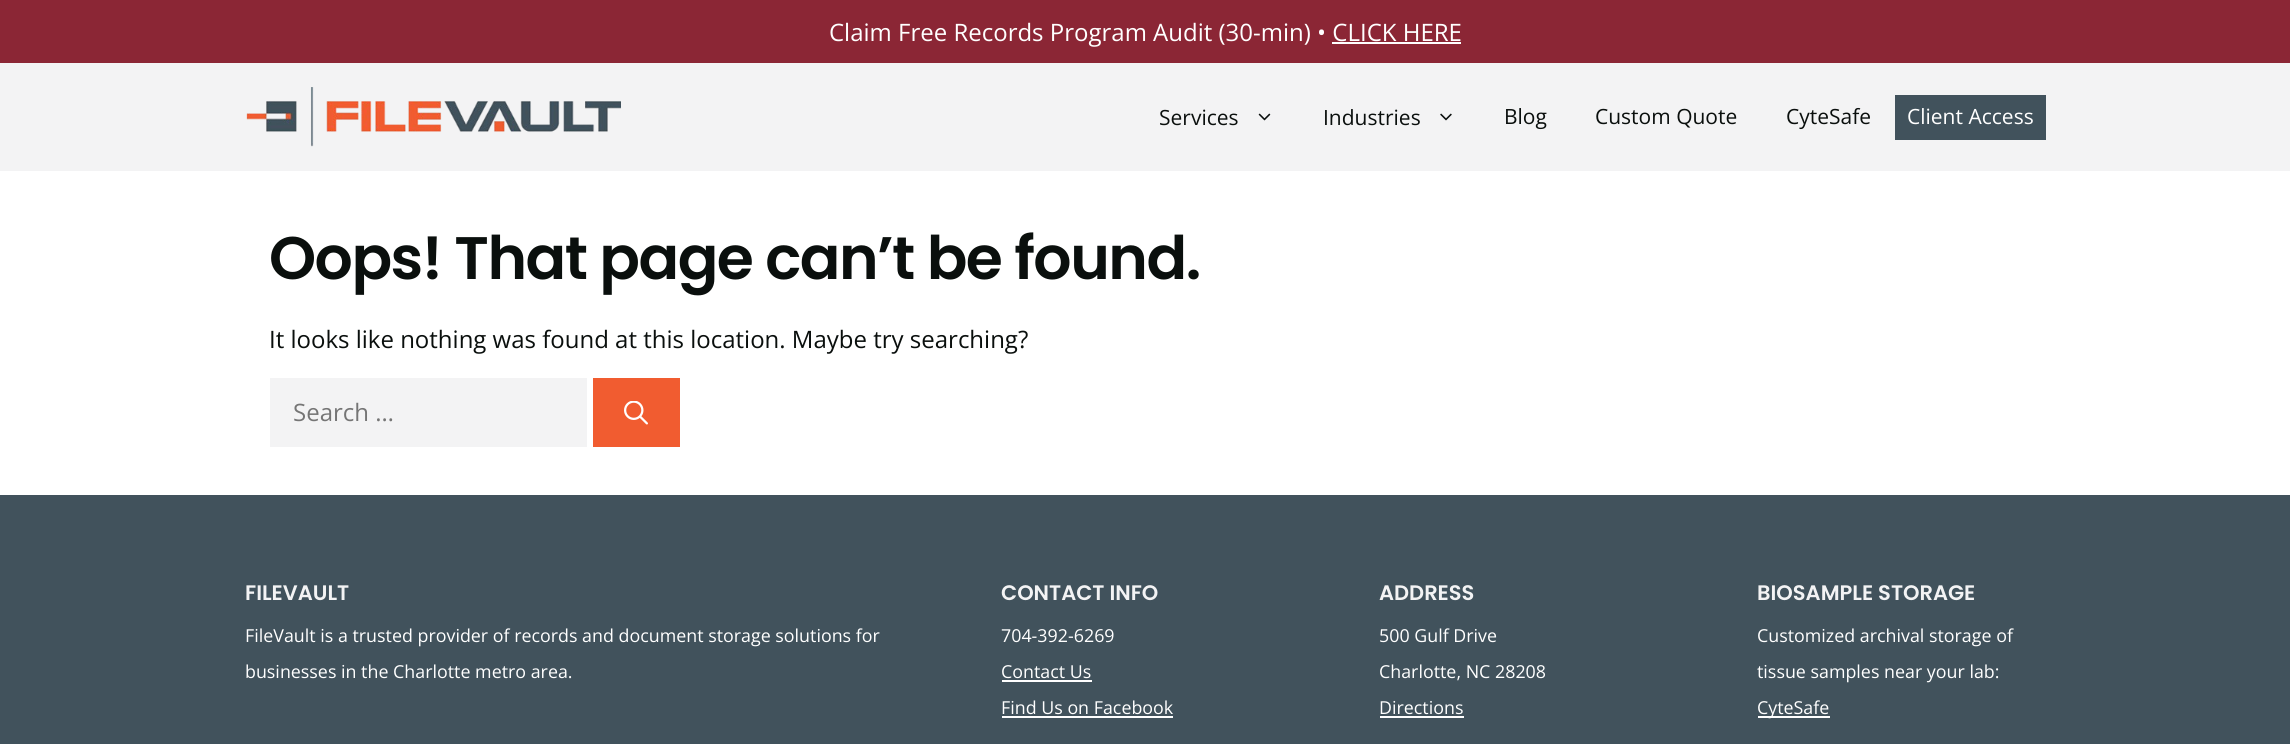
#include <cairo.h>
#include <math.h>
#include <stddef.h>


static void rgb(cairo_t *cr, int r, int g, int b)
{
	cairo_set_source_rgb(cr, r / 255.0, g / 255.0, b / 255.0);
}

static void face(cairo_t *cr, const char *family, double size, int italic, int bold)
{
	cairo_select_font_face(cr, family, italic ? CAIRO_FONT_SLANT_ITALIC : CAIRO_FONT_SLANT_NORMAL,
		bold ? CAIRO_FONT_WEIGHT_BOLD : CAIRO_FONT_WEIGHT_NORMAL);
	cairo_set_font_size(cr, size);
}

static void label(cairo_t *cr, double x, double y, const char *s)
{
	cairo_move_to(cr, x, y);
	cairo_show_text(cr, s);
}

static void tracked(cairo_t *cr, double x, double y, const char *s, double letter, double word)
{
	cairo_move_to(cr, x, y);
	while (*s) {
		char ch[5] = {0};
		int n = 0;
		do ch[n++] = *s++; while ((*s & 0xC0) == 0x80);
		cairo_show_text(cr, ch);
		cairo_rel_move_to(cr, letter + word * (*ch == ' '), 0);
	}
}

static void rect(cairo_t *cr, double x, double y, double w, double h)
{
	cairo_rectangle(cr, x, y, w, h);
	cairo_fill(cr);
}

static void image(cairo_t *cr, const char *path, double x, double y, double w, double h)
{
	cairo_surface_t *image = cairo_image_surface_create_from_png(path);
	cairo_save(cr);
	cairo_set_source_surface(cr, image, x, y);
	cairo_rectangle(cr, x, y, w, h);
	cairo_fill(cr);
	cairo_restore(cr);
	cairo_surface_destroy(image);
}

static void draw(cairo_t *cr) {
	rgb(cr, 255, 255, 255);
	cairo_paint(cr);
	rgb(cr, 139, 38, 53);
	rect(cr, 0, 0, 2290, 63);
	face(cr, "Open Sans", 24, 0, 0);
	rgb(cr, 255, 255, 255);
	label(cr, 829, 41, "Claim Free Records Program Audit (30-min) • CLICK HERE");
	rect(cr, 1332, 42, 129, 2);
	rgb(cr, 243, 243, 244);
	rect(cr, 0, 63, 2290, 108);
	image(cr, "image0.png", 246, 87, 375, 60);
	face(cr, "Open Sans", 21, 0, 0);
	rgb(cr, 10, 15, 13);
	label(cr, 1159, 125, "Services");
	image(cr, "image1.png", 1258, 113, 13, 8);
	label(cr, 1323, 125, "Industries");
	image(cr, "image2.png", 1440, 113, 12, 8);
	label(cr, 1504, 124, "Blog");
	label(cr, 1595, 124, "Custom Quote");
	label(cr, 1786, 124, "CyteSafe");
	rgb(cr, 65, 82, 92);
	rect(cr, 1895, 95, 151, 45);
	rgb(cr, 255, 255, 255);
	label(cr, 1907, 124, "Client Access");
	face(cr, "Poppins SemiBold", 60, 0, 0);
	rgb(cr, 10, 15, 13);
	tracked(cr, 269, 279, "Oops! That page can’t be found.", -1.5, 0);
	face(cr, "Open Sans", 24, 0, 0);
	label(cr, 269, 348, "It looks like nothing was found at this location. Maybe try searching?");
	rgb(cr, 243, 243, 244);
	rect(cr, 270, 378, 317, 69);
	rgb(cr, 117, 117, 117);
	label(cr, 293, 421, "Search …");
	rgb(cr, 241, 92, 48);
	rect(cr, 593, 378, 87, 69);
	image(cr, "image3.png", 624, 401, 24, 24);
	rgb(cr, 65, 82, 92);
	rect(cr, 0, 495, 2290, 249);
	face(cr, "Poppins SemiBold", 21, 0, 0);
	rgb(cr, 243, 243, 244);
	label(cr, 245, 600, "FILEVAULT");
	face(cr, "Open Sans", 17.85, 0, 0);
	rgb(cr, 255, 255, 255);
	label(cr, 245, 642, "FileVault is a trusted provider of records and document storage solutions for");
	label(cr, 245, 678, "businesses in the Charlotte metro area.");
	face(cr, "Poppins SemiBold", 21, 0, 0);
	rgb(cr, 243, 243, 244);
	label(cr, 1001, 600, "CONTACT INFO");
	face(cr, "Open Sans", 17.85, 0, 0);
	rgb(cr, 255, 255, 255);
	label(cr, 1001, 642, "704-392-6269");
	label(cr, 1001, 678, "Contact Us");
	rect(cr, 1002, 680, 90, 2);
	label(cr, 1001, 714, "Find Us on Facebook");
	rect(cr, 1002, 716, 171, 2);
	face(cr, "Poppins SemiBold", 21, 0, 0);
	rgb(cr, 243, 243, 244);
	label(cr, 1379, 600, "ADDRESS");
	face(cr, "Open Sans", 17.85, 0, 0);
	rgb(cr, 255, 255, 255);
	label(cr, 1379, 642, "500 Gulf Drive");
	label(cr, 1379, 678, "Charlotte, NC 28208");
	label(cr, 1379, 714, "Directions");
	rect(cr, 1380, 716, 84, 2);
	face(cr, "Poppins SemiBold", 21, 0, 0);
	rgb(cr, 243, 243, 244);
	label(cr, 1757, 600, "BIOSAMPLE STORAGE");
	face(cr, "Open Sans", 17.85, 0, 0);
	rgb(cr, 255, 255, 255);
	label(cr, 1757, 642, "Customized archival storage of");
	label(cr, 1757, 678, "tissue samples near your lab:");
	rect(cr, 1758, 716, 72, 2);
	label(cr, 1757, 714, "CyteSafe");
}

int main(void) {
	cairo_surface_t *surface = cairo_image_surface_create(CAIRO_FORMAT_RGB24, 2290, 744);
	cairo_t *cr = cairo_create(surface);
	cairo_font_options_t *options = cairo_font_options_create();
	cairo_font_options_set_hint_metrics(options, CAIRO_HINT_METRICS_OFF);
	cairo_font_options_set_hint_style(options, CAIRO_HINT_STYLE_NONE);
	cairo_set_font_options(cr, options);
	cairo_set_miter_limit(cr, 4);
	draw(cr);
	cairo_surface_write_to_png(surface, "render.png");
	cairo_font_options_destroy(options);
	cairo_destroy(cr);
	cairo_surface_destroy(surface);
	return 0;
}
